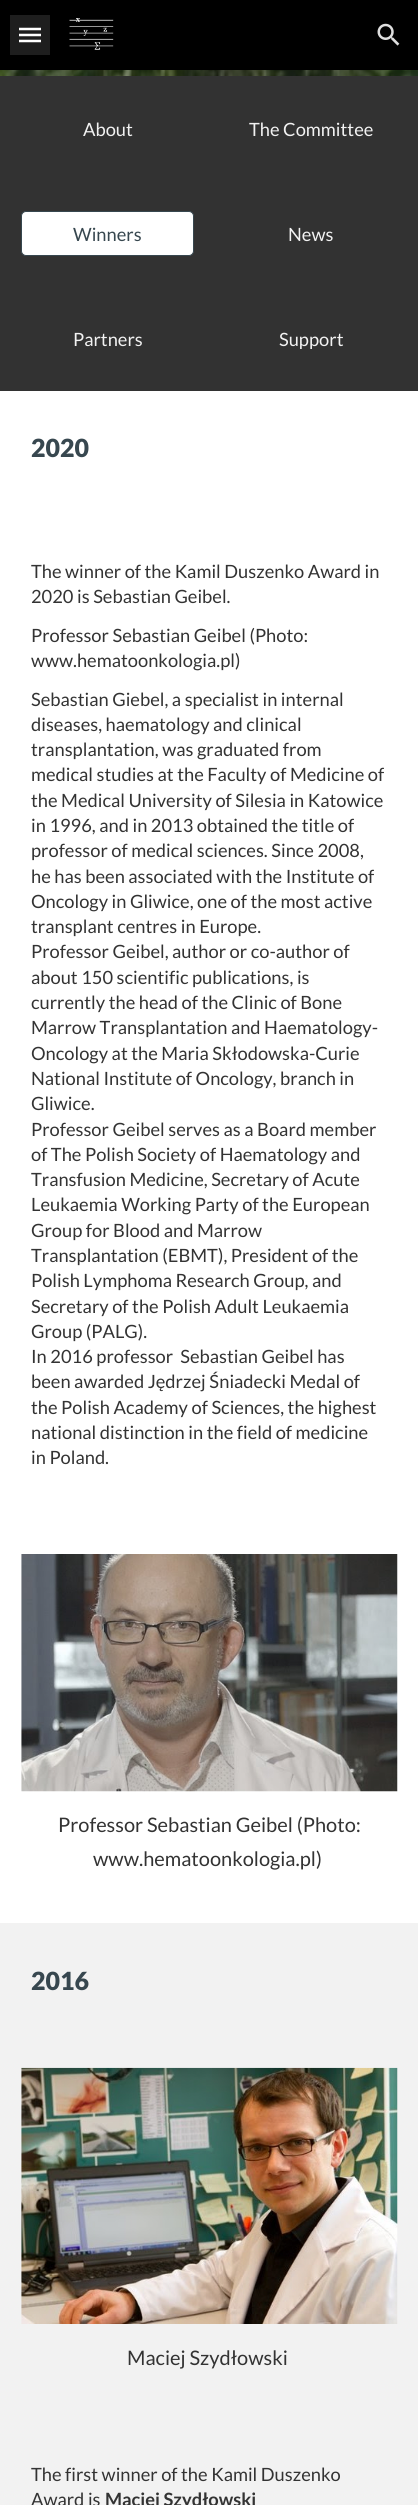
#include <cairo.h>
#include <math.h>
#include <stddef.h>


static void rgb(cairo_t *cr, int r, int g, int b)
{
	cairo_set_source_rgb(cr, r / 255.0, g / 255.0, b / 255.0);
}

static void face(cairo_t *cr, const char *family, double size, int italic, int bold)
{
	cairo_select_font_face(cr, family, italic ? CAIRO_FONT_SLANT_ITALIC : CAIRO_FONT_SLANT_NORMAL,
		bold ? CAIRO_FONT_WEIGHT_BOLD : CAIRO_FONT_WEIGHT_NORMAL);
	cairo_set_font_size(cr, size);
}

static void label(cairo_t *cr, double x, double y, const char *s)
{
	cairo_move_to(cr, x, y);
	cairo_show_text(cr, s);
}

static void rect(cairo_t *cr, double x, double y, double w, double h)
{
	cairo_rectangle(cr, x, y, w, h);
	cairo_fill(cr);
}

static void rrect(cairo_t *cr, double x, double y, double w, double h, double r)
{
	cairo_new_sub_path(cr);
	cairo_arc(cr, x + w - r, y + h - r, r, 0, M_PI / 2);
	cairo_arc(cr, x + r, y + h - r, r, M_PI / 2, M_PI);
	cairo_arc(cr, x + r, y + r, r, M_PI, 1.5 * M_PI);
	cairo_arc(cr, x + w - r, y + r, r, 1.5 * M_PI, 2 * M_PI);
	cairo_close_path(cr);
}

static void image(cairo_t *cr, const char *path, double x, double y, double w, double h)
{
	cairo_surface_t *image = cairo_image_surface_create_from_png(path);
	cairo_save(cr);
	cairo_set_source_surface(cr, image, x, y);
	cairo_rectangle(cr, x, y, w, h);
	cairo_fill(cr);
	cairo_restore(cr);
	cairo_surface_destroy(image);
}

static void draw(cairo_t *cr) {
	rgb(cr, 255, 255, 255);
	cairo_paint(cr);
	rgb(cr, 0, 0, 0);
	rect(cr, 0, 0, 418, 70);
	image(cr, "image0.png", 69, 18, 45, 32);
	image(cr, "image1.png", 377, 23, 23, 23);
	cairo_new_path(cr);
	cairo_move_to(cr, 19, 29);
	cairo_line_to(cr, 41, 29);
	cairo_move_to(cr, 19, 35);
	cairo_line_to(cr, 41, 35);
	cairo_move_to(cr, 19, 41);
	cairo_line_to(cr, 41, 41);
	rgb(cr, 255, 255, 255);
	cairo_set_line_width(cr, 2.5);
	cairo_stroke(cr);
	cairo_set_source_rgba(cr, 1, 1, 1, 0.12);
	rect(cr, 10, 15, 40, 40);
	image(cr, "image2.png", 0, 70, 418, 6);
	rgb(cr, 50, 50, 50);
	rect(cr, 0, 76, 418, 315);
	face(cr, "Lato", 18.3, 0, 0);
	rgb(cr, 242, 242, 242);
	label(cr, 83, 136, "About");
	label(cr, 249, 136, "The Committee");
	rgb(cr, 255, 255, 255);
	rrect(cr, 21.5, 211.5, 172, 44, 4.5);
	cairo_fill_preserve(cr);
	rgb(cr, 55, 71, 79);
	cairo_set_line_width(cr, 1);
	cairo_stroke(cr);
	label(cr, 73, 241, "Winners");
	rgb(cr, 242, 242, 242);
	label(cr, 288, 241, "News");
	label(cr, 73, 346, "Partners");
	cairo_save(cr);
	cairo_rectangle(cr, 233, 328, 157, 21);
	cairo_clip(cr);
	label(cr, 279, 346, "Support");
	cairo_restore(cr);
	face(cr, "Lato Black", 25, 0, 0);
	rgb(cr, 55, 71, 79);
	label(cr, 31, 457, "2020");
	face(cr, "Lato", 18.3, 0, 0);
	rgb(cr, 51, 51, 51);
	label(cr, 31, 578, "The winner of the Kamil Duszenko Award in");
	label(cr, 31, 603, "2020 is Sebastian Geibel.");
	label(cr, 31, 642, "Professor Sebastian Geibel (Photo:");
	label(cr, 31, 667, "www.hematoonkologia.pl)");
	label(cr, 31, 706, "Sebastian Giebel, a specialist in internal");
	label(cr, 31, 731, "diseases, haematology and clinical");
	label(cr, 31, 756, "transplantation, was graduated from");
	label(cr, 31, 781, "medical studies at the Faculty of Medicine of");
	label(cr, 31, 807, "the Medical University of Silesia in Katowice");
	label(cr, 31, 832, "in 1996, and in 2013 obtained the title of");
	label(cr, 31, 857, "professor of medical sciences. Since 2008,");
	label(cr, 31, 883, "he has been associated with the Institute of");
	label(cr, 31, 908, "Oncology in Gliwice, one of the most active");
	label(cr, 31, 933, "transplant centres in Europe.");
	label(cr, 31, 958, "Professor Geibel, author or co-author of");
	label(cr, 31, 984, "about 150 scientific publications, is");
	label(cr, 31, 1009, "currently the head of the Clinic of Bone");
	label(cr, 31, 1034, "Marrow Transplantation and Haematology-");
	label(cr, 31, 1060, "Oncology at the Maria Skłodowska-Curie");
	label(cr, 31, 1085, "National Institute of Oncology, branch in");
	label(cr, 31, 1110, "Gliwice.");
	label(cr, 31, 1136, "Professor Geibel serves as a Board member");
	label(cr, 31, 1161, "of The Polish Society of Haematology and");
	label(cr, 31, 1186, "Transfusion Medicine, Secretary of Acute");
	label(cr, 31, 1211, "Leukaemia Working Party of the European");
	label(cr, 31, 1237, "Group for Blood and Marrow");
	label(cr, 31, 1262, "Transplantation (EBMT), President of the");
	label(cr, 31, 1287, "Polish Lymphoma Research Group, and");
	label(cr, 31, 1313, "Secretary of the Polish Adult Leukaemia");
	label(cr, 31, 1338, "Group (PALG).");
	label(cr, 31, 1363, "In 2016 professor  Sebastian Geibel has");
	label(cr, 31, 1388, "been awarded Jędrzej Śniadecki Medal of");
	label(cr, 31, 1414, "the Polish Academy of Sciences, the highest");
	label(cr, 31, 1439, "national distinction in the field of medicine");
	label(cr, 31, 1464, "in Poland.");
	image(cr, "image3.png", 21, 1554, 377, 238);
	face(cr, "Lato", 20, 0, 0);
	label(cr, 58, 1832, "Professor Sebastian Geibel (Photo:");
	label(cr, 93, 1866, "www.hematoonkologia.pl)");
	rgb(cr, 242, 242, 242);
	rect(cr, 0, 1923, 418, 582);
	face(cr, "Lato Black", 25, 0, 0);
	rgb(cr, 55, 71, 79);
	label(cr, 31, 1990, "2016");
	image(cr, "image4.png", 21, 2067, 377, 257);
	face(cr, "Lato", 20, 0, 0);
	rgb(cr, 51, 51, 51);
	label(cr, 127, 2365, "Maciej Szydłowski");
	face(cr, "Lato", 18.3, 0, 0);
	label(cr, 31, 2481, "The first winner of the Kamil Duszenko");
	label(cr, 31, 2506, "Award is");
	face(cr, "Lato", 18.3, 0, 1);
	label(cr, 105, 2506, "Maciej Szydłowski");
}

int main(void) {
	cairo_surface_t *surface = cairo_image_surface_create(CAIRO_FORMAT_RGB24, 418, 2505);
	cairo_t *cr = cairo_create(surface);
	cairo_font_options_t *options = cairo_font_options_create();
	cairo_font_options_set_hint_metrics(options, CAIRO_HINT_METRICS_OFF);
	cairo_font_options_set_hint_style(options, CAIRO_HINT_STYLE_NONE);
	cairo_set_font_options(cr, options);
	cairo_set_miter_limit(cr, 4);
	draw(cr);
	cairo_surface_write_to_png(surface, "render.png");
	cairo_font_options_destroy(options);
	cairo_destroy(cr);
	cairo_surface_destroy(surface);
	return 0;
}
